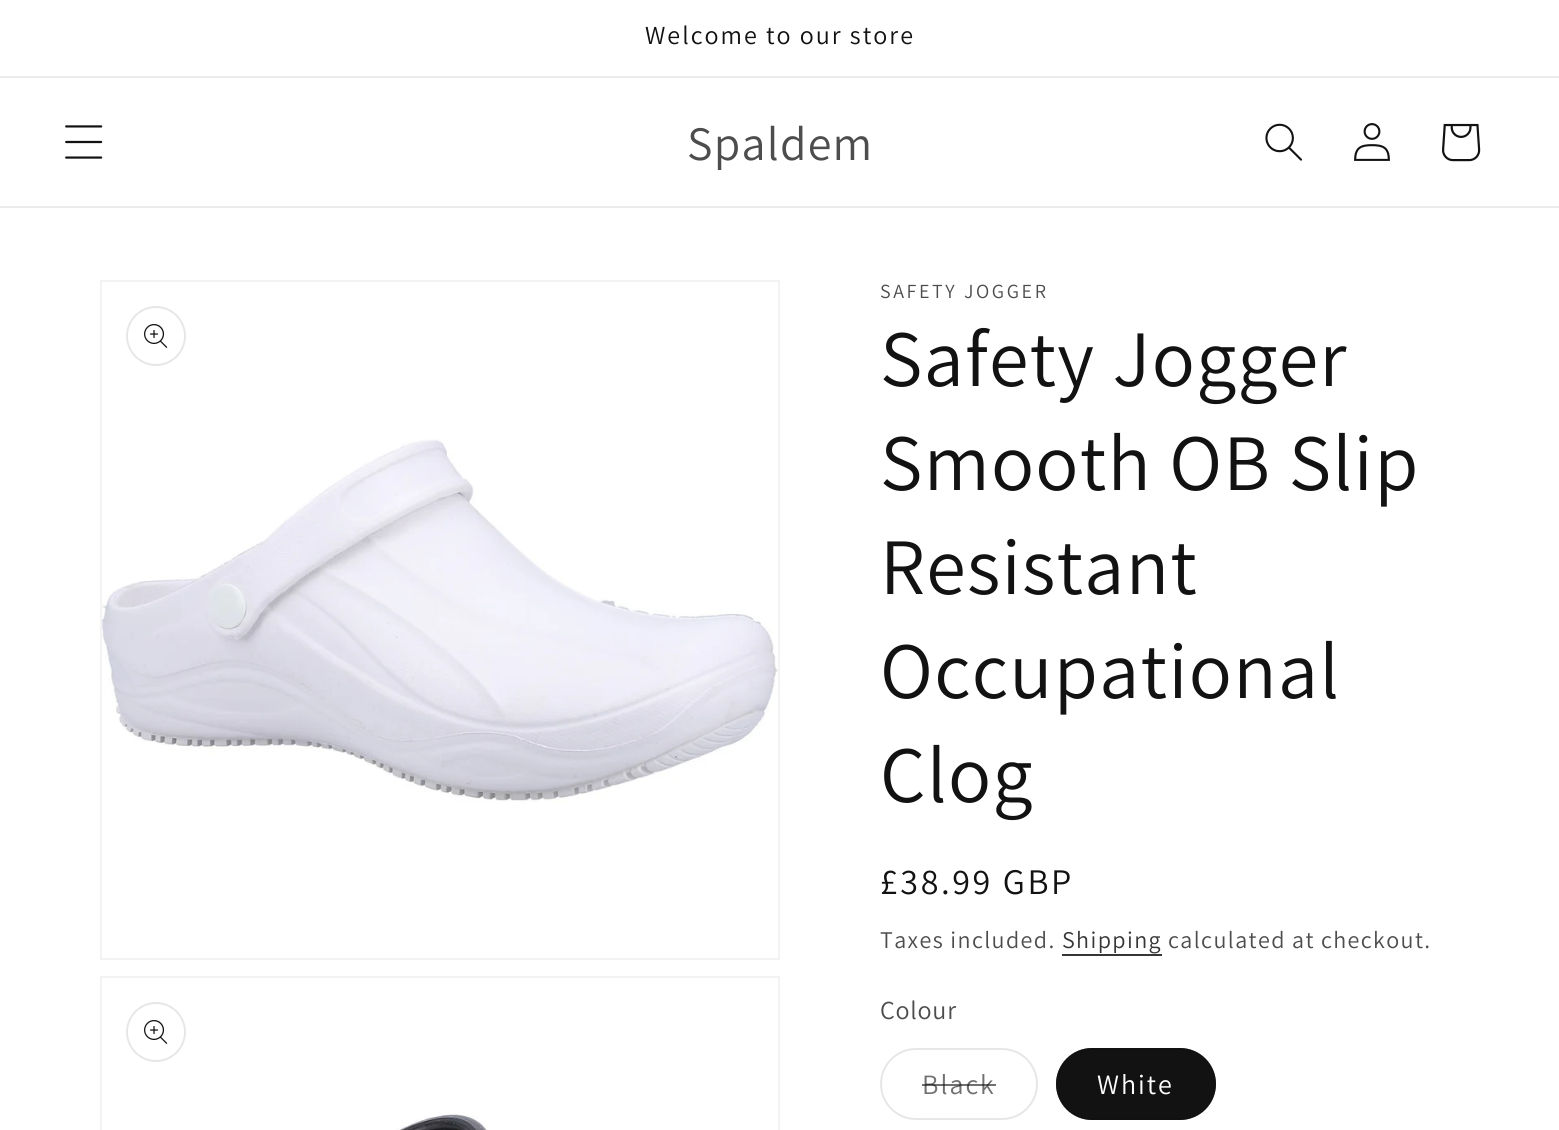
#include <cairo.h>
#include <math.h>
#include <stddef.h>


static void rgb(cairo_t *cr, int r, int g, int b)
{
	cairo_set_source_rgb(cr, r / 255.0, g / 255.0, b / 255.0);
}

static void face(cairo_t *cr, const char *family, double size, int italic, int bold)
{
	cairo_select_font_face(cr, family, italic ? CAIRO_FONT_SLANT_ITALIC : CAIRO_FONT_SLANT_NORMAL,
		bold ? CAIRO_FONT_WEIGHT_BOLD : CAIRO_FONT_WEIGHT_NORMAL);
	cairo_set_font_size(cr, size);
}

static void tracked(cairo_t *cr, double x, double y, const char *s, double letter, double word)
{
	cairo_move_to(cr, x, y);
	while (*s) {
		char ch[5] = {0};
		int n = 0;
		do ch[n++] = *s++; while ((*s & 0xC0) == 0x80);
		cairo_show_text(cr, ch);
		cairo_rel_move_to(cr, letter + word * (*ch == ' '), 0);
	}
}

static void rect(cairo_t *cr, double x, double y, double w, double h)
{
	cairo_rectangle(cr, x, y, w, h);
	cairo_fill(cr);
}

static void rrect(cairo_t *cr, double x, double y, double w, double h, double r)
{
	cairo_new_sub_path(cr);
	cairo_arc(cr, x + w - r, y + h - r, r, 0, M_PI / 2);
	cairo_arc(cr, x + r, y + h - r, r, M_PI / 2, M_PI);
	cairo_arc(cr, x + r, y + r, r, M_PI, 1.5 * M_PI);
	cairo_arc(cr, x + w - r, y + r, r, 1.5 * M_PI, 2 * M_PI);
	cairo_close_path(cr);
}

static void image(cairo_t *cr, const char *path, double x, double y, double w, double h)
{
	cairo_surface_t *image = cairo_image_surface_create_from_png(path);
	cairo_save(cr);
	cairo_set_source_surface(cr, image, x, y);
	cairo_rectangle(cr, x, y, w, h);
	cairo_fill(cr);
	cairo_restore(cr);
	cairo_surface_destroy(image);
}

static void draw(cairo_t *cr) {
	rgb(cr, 255, 255, 255);
	cairo_paint(cr);
	rgb(cr, 236, 236, 236);
	rect(cr, 0, 76, 1559, 2);
	face(cr, "Assistant", 26, 0, 0);
	rgb(cr, 18, 18, 18);
	tracked(cr, 645, 44, "Welcome to our store", 2, 0);
	rgb(cr, 236, 236, 236);
	rect(cr, 0, 206, 1559, 2);
	image(cr, "image0.png", 65, 125, 38, 34);
	face(cr, "Assistant", 48, 0, 0);
	rgb(cr, 77, 77, 77);
	tracked(cr, 687, 160, "Spaldem", 1.25, 0);
	image(cr, "image1.png", 1265, 123, 37, 38);
	image(cr, "image2.png", 1354, 123, 36, 38);
	image(cr, "image3.png", 1442, 123, 39, 39);
	cairo_rectangle(cr, 101, 281, 678, 678);
	rgb(cr, 243, 243, 243);
	cairo_stroke(cr);
	cairo_arc(cr, 156, 336, 29, 0, 2 * M_PI);
	rgb(cr, 231, 231, 231);
	cairo_stroke(cr);
	image(cr, "image4.png", 144, 324, 24, 24);
	image(cr, "image5.png", 102, 439, 676, 364);
	cairo_rectangle(cr, 101, 977, 678, 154);
	rgb(cr, 243, 243, 243);
	cairo_stroke(cr);
	cairo_arc(cr, 156, 1032, 29, 0, 2 * M_PI);
	rgb(cr, 231, 231, 231);
	cairo_stroke(cr);
	image(cr, "image4.png", 144, 1020, 24, 24);
	image(cr, "image6.png", 396, 1112, 92, 18);
	face(cr, "Assistant", 20, 0, 0);
	rgb(cr, 77, 77, 77);
	tracked(cr, 880, 298, "SAFETY JOGGER", 2.6, 0);
	face(cr, "Assistant", 80, 0, 0);
	rgb(cr, 18, 18, 18);
	tracked(cr, 880, 386, "Safety Jogger", 1.25, 0);
	tracked(cr, 880, 490, "Smooth OB Slip", 1.25, 0);
	tracked(cr, 880, 594, "Resistant", 1.25, 0);
	tracked(cr, 880, 698, "Occupational", 1.25, 0);
	tracked(cr, 880, 802, "Clog", 1.25, 0);
	face(cr, "Assistant", 36, 0, 0);
	tracked(cr, 880, 894, "£38.99 GBP", 2.6, 0);
	face(cr, "Assistant", 24, 0, 0);
	rgb(cr, 77, 77, 77);
	tracked(cr, 880, 948, "Taxes included.", 1.4, 0);
	rgb(cr, 54, 54, 54);
	tracked(cr, 1062, 948, "Shipping", 1.4, 0);
	rect(cr, 1062, 954, 100, 2);
	rgb(cr, 77, 77, 77);
	tracked(cr, 1168, 948, "calculated at checkout.", 1.4, 0);
	face(cr, "Assistant", 26, 0, 0);
	tracked(cr, 880, 1019, "Colour", 0.75, 0);
	rrect(cr, 881, 1049, 156, 70, 35);
	rgb(cr, 231, 231, 231);
	cairo_stroke(cr);
	face(cr, "Assistant", 28, 0, 0);
	rgb(cr, 113, 113, 113);
	tracked(cr, 922, 1094, "Black", 2, 0);
	cairo_set_source_rgba(cr, 0.071, 0.071, 0.071, 0.6);
	rect(cr, 922, 1084, 74, 2);
	rgb(cr, 18, 18, 18);
	rrect(cr, 1056, 1048, 160, 72, 36);
	cairo_fill(cr);
	rrect(cr, 1057, 1049, 158, 70, 35);
	cairo_set_source_rgba(cr, 0.071, 0.071, 0.071, 0.55);
	cairo_stroke(cr);
	rgb(cr, 255, 255, 255);
	tracked(cr, 1097, 1094, "White", 2, 0);
}

int main(void) {
	cairo_surface_t *surface = cairo_image_surface_create(CAIRO_FORMAT_RGB24, 1559, 1130);
	cairo_t *cr = cairo_create(surface);
	cairo_font_options_t *options = cairo_font_options_create();
	cairo_font_options_set_hint_metrics(options, CAIRO_HINT_METRICS_OFF);
	cairo_font_options_set_hint_style(options, CAIRO_HINT_STYLE_NONE);
	cairo_set_font_options(cr, options);
	cairo_set_miter_limit(cr, 4);
	draw(cr);
	cairo_surface_write_to_png(surface, "render.png");
	cairo_font_options_destroy(options);
	cairo_destroy(cr);
	cairo_surface_destroy(surface);
	return 0;
}
